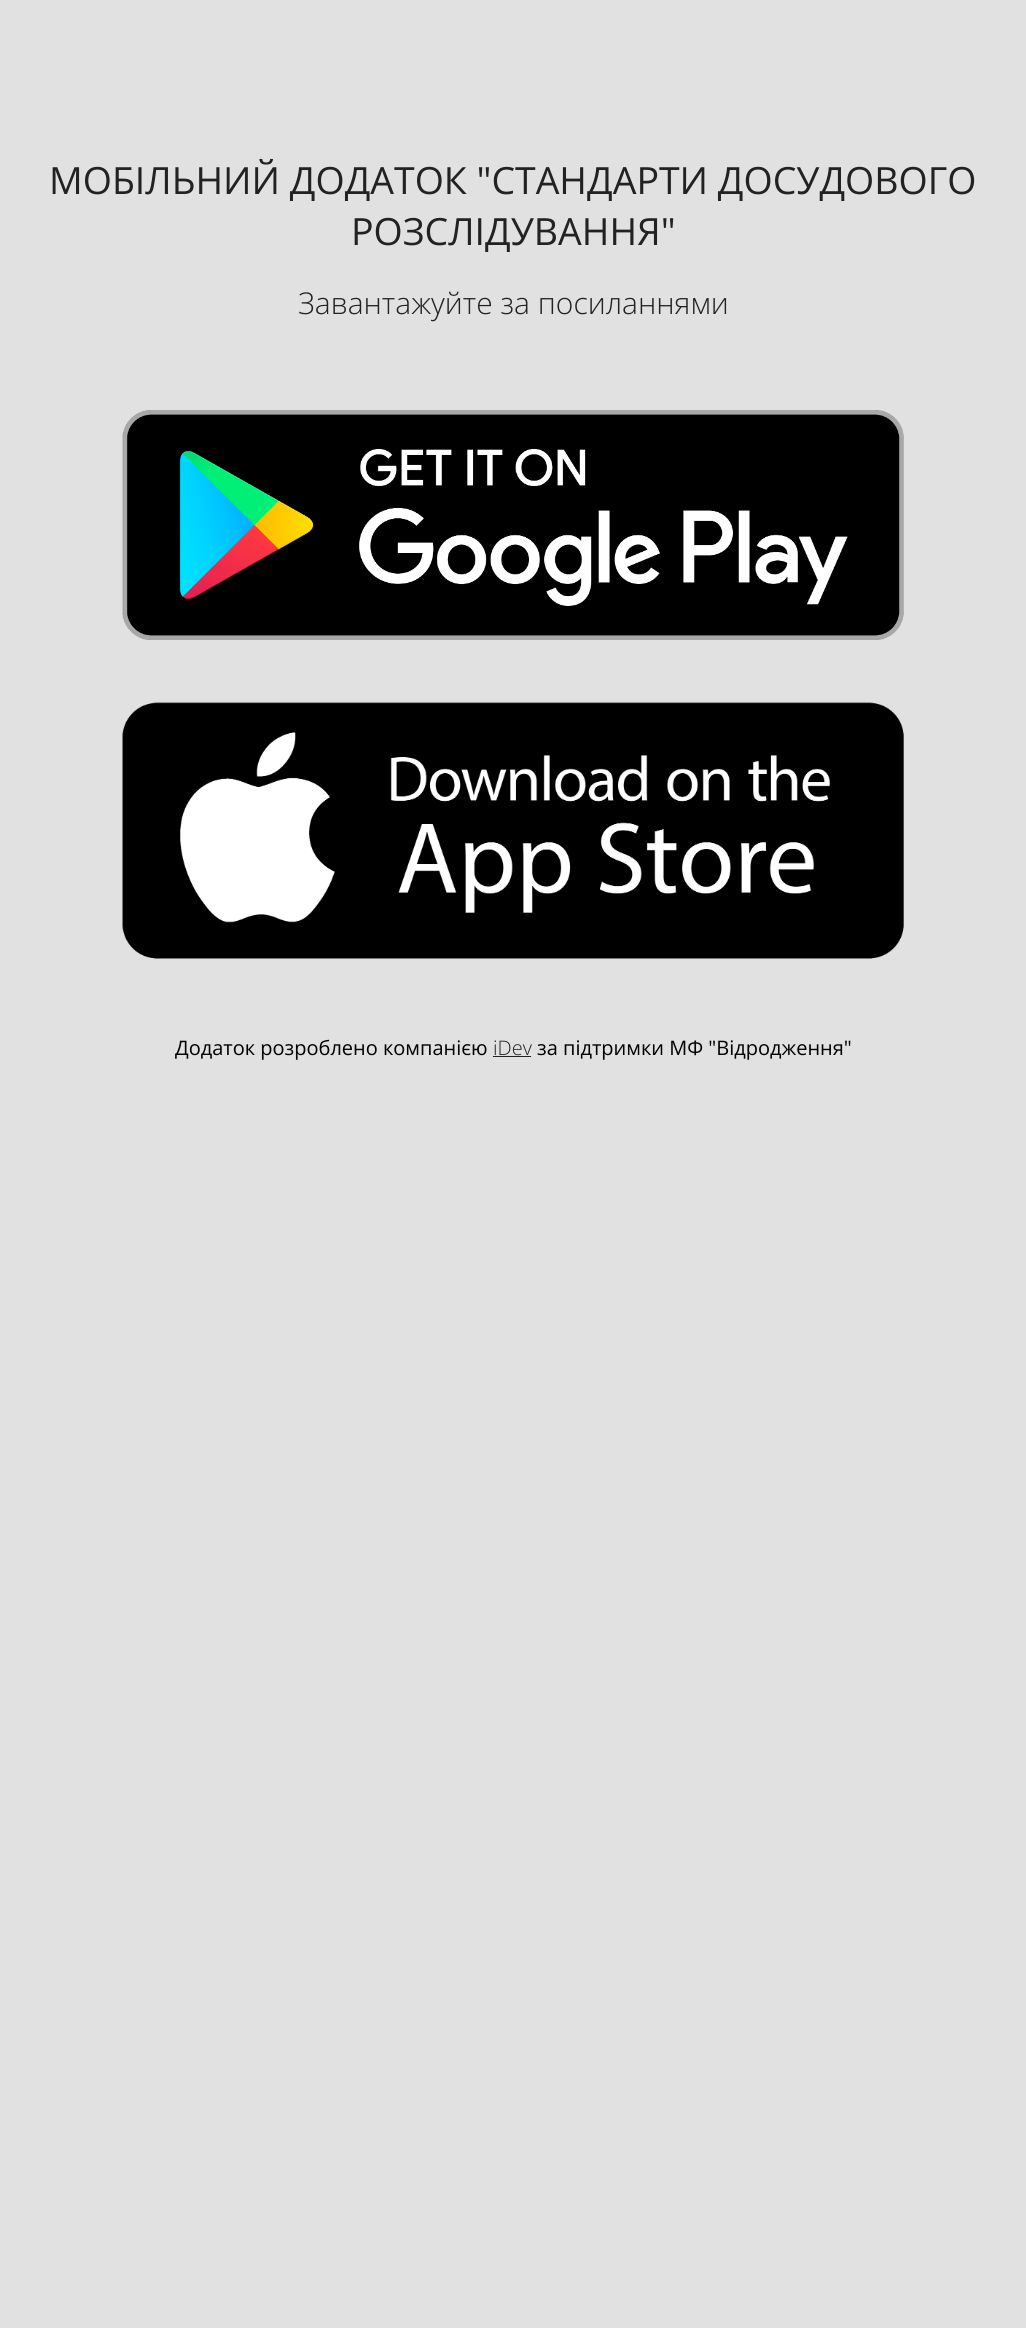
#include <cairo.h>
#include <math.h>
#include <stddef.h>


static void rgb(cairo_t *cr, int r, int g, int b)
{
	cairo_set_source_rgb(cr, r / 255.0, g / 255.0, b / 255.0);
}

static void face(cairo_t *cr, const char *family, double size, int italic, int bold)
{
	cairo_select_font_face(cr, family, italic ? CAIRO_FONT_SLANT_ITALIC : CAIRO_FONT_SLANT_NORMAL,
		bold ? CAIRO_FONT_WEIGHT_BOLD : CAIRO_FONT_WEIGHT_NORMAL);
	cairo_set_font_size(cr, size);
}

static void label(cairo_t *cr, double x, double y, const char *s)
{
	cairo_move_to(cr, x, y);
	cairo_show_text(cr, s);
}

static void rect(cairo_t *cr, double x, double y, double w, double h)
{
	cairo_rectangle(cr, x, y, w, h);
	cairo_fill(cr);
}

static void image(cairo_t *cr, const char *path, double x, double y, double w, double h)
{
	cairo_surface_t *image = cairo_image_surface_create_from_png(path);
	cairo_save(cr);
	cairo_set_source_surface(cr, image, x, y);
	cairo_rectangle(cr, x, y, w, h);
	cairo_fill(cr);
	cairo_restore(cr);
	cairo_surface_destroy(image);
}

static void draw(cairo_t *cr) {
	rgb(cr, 225, 225, 225);
	cairo_paint(cr);
	face(cr, "Open Sans", 37.5, 0, 0);
	rgb(cr, 34, 34, 34);
	label(cr, 49, 194, "МОБIЛЬНИЙ ДОДАТОК \"СТАНДАРТИ ДОСУДОВОГО");
	label(cr, 351, 245, "РОЗСЛІДУВАННЯ\"");
	face(cr, "Open Sans Light", 30, 0, 0);
	label(cr, 298, 314, "Завантажуйте за посиланнями");
	image(cr, "image0.png", 122, 410, 782, 230);
	image(cr, "image1.png", 122, 702, 782, 257);
	face(cr, "Open Sans", 20, 0, 0);
	rgb(cr, 0, 0, 0);
	label(cr, 175, 1055, "Додаток розроблено компанією");
	face(cr, "Open Sans Light", 20, 0, 0);
	rgb(cr, 34, 34, 34);
	label(cr, 493, 1055, "iDev");
	rect(cr, 493, 1056, 38, 1);
	face(cr, "Open Sans", 20, 0, 0);
	rgb(cr, 0, 0, 0);
	label(cr, 537, 1055, "за підтримки МФ \"Відродження\"");
}

int main(void) {
	cairo_surface_t *surface = cairo_image_surface_create(CAIRO_FORMAT_RGB24, 1026, 2328);
	cairo_t *cr = cairo_create(surface);
	cairo_font_options_t *options = cairo_font_options_create();
	cairo_font_options_set_hint_metrics(options, CAIRO_HINT_METRICS_OFF);
	cairo_font_options_set_hint_style(options, CAIRO_HINT_STYLE_NONE);
	cairo_set_font_options(cr, options);
	cairo_set_miter_limit(cr, 4);
	draw(cr);
	cairo_surface_write_to_png(surface, "render.png");
	cairo_font_options_destroy(options);
	cairo_destroy(cr);
	cairo_surface_destroy(surface);
	return 0;
}
